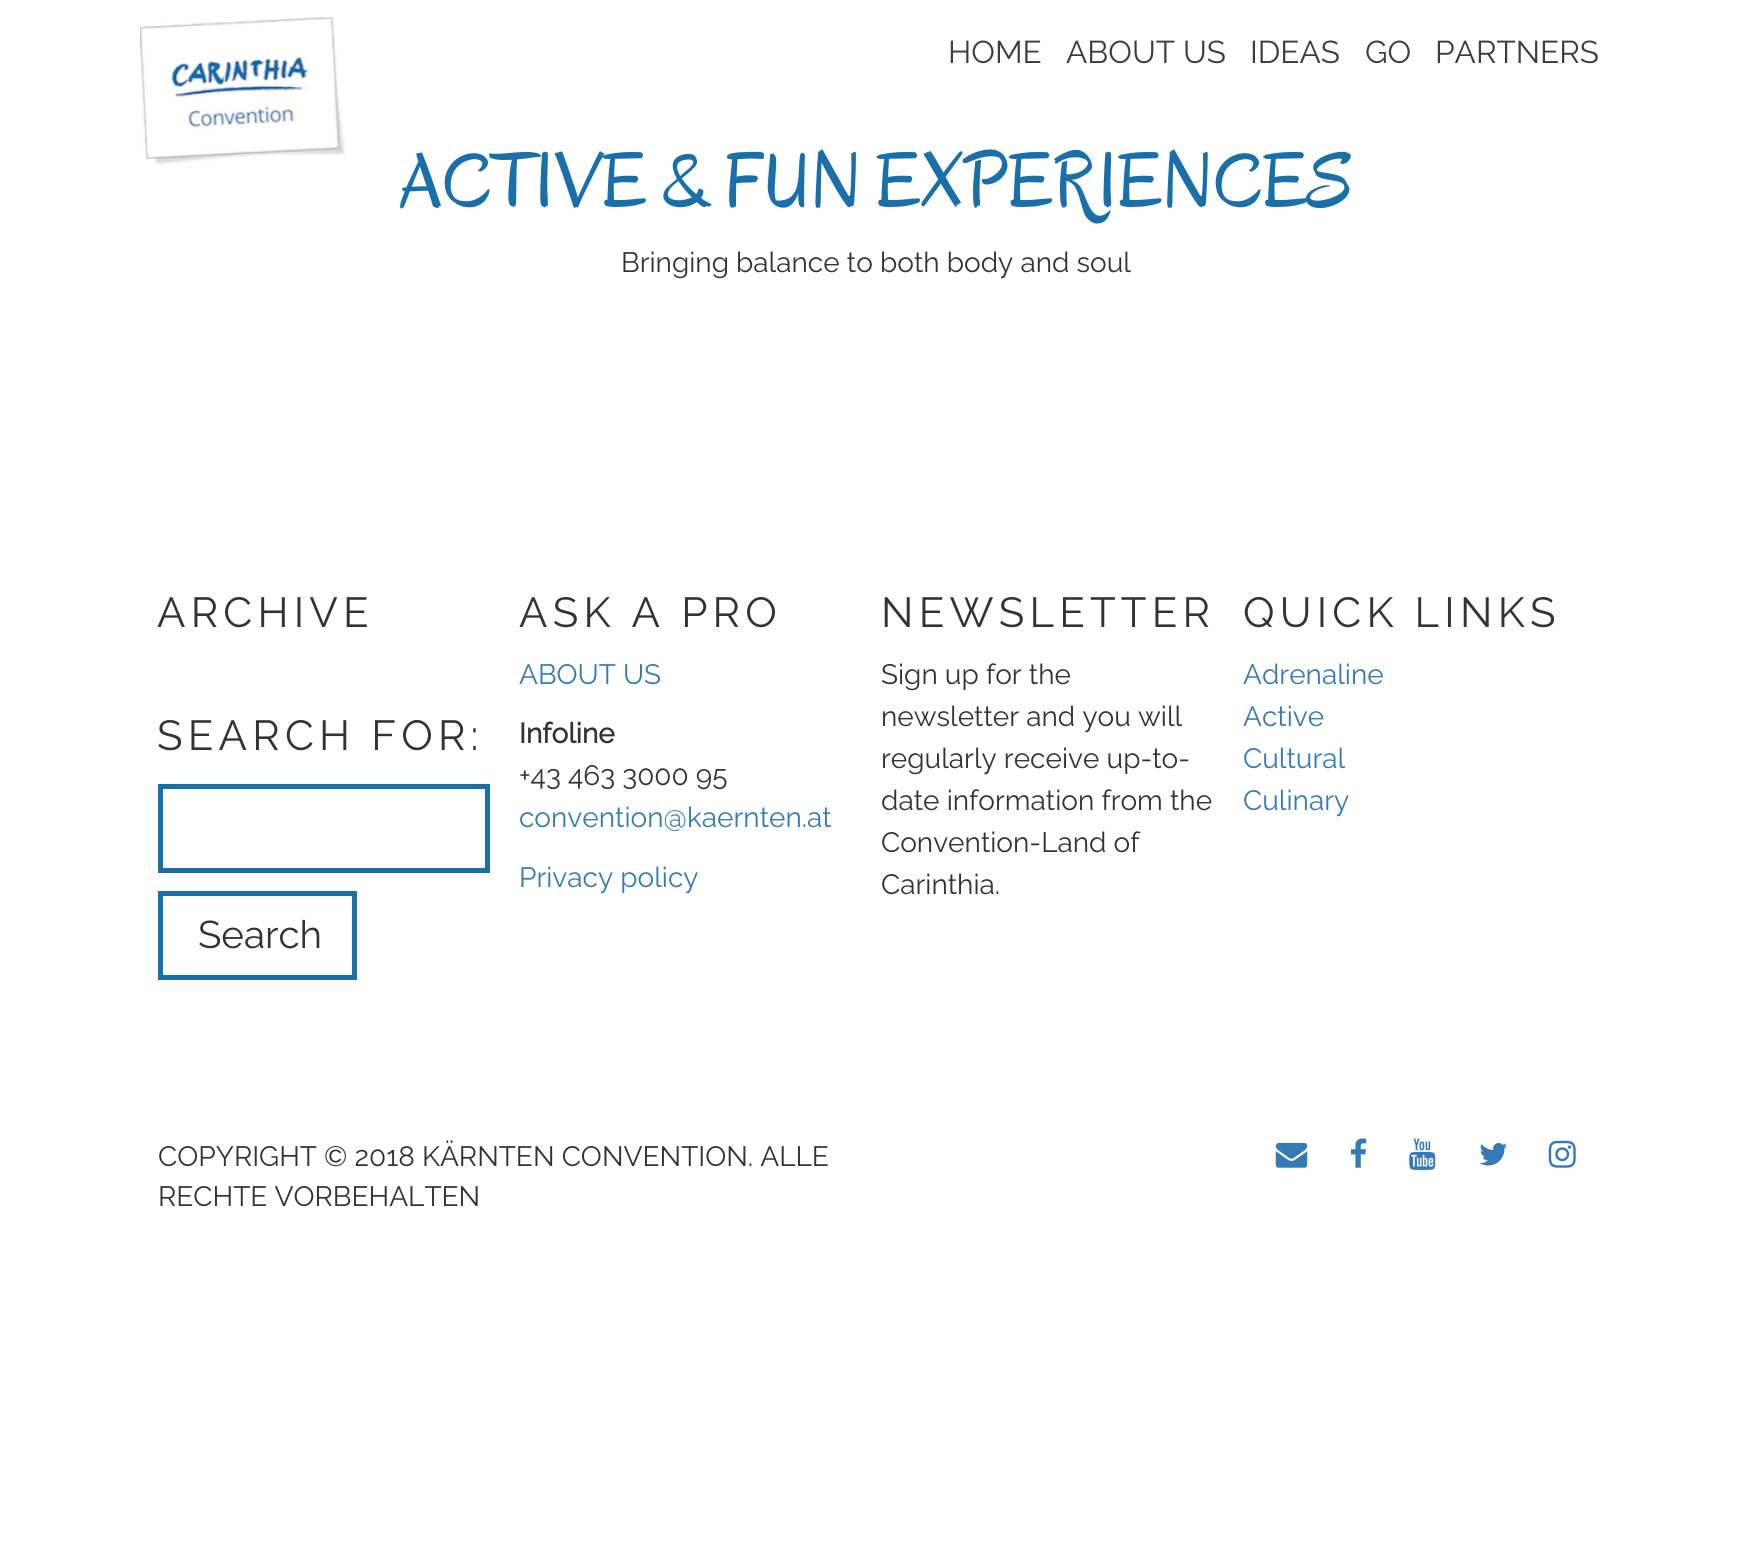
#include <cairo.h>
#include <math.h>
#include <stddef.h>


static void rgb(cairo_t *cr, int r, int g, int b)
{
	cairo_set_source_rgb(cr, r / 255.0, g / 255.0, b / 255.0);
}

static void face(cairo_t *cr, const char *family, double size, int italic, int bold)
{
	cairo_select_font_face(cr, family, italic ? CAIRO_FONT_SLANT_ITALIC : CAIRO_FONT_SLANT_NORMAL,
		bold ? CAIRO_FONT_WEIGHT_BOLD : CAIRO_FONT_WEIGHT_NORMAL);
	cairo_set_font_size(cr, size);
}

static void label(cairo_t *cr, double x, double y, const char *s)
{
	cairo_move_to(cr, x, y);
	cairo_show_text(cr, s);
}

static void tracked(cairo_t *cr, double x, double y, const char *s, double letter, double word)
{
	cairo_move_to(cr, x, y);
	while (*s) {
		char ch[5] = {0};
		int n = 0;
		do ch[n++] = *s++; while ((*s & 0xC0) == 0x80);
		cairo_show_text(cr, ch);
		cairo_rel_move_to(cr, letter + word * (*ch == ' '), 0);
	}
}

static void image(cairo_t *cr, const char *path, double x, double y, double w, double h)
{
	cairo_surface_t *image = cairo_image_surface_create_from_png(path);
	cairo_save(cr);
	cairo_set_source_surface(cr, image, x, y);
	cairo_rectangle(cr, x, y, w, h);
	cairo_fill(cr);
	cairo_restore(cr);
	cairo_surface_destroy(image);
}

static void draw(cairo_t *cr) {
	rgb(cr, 255, 255, 255);
	cairo_paint(cr);
	image(cr, "image0.png", 140, 17, 206, 148);
	face(cr, "Raleway Thin", 31.5, 0, 0);
	rgb(cr, 61, 61, 61);
	label(cr, 948, 63, "HOME");
	label(cr, 1066, 63, "ABOUT US");
	label(cr, 1250, 63, "IDEAS");
	label(cr, 1365, 63, "GO");
	label(cr, 1435, 63, "PARTNERS");
	face(cr, "Oregano", 78.75, 0, 0);
	rgb(cr, 24, 111, 170);
	label(cr, 399, 207, "ACTIVE & FUN EXPERIENCES");
	face(cr, "Raleway Thin", 28, 0, 0);
	rgb(cr, 51, 51, 51);
	label(cr, 621, 272, "Bringing balance to both body and soul");
	face(cr, "Raleway Thin", 42, 0, 0);
	tracked(cr, 157, 627, "ARCHIVE", 5.25, 0);
	tracked(cr, 157, 750, "SEARCH FOR:", 5.25, 0);
	cairo_rectangle(cr, 160.5, 786.5, 327, 84);
	rgb(cr, 24, 111, 170);
	cairo_set_line_width(cr, 5);
	cairo_stroke(cr);
	cairo_rectangle(cr, 160.5, 893.5, 194, 84);
	cairo_stroke(cr);
	face(cr, "Raleway Thin", 38.5, 0, 0);
	rgb(cr, 51, 51, 51);
	label(cr, 198, 948, "Search");
	face(cr, "Raleway Thin", 42, 0, 0);
	tracked(cr, 519, 627, "ASK A PRO", 5.25, 0);
	face(cr, "Raleway Thin", 28, 0, 0);
	rgb(cr, 51, 122, 183);
	label(cr, 519, 684, "ABOUT US");
	face(cr, "Raleway", 28, 0, 1);
	rgb(cr, 51, 51, 51);
	label(cr, 519, 743, "Infoline");
	face(cr, "Raleway Thin", 28, 0, 0);
	label(cr, 519, 785, "+43 463 3000 95");
	rgb(cr, 51, 122, 183);
	label(cr, 519, 827, "convention@kaernten.at");
	label(cr, 519, 887, "Privacy policy");
	face(cr, "Raleway Thin", 42, 0, 0);
	rgb(cr, 51, 51, 51);
	tracked(cr, 881, 627, "NEWSLETTER", 5.25, 0);
	face(cr, "Raleway Thin", 28, 0, 0);
	label(cr, 881, 684, "Sign up for the");
	label(cr, 881, 726, "newsletter and you will");
	label(cr, 881, 768, "regularly receive up-to-");
	label(cr, 881, 810, "date information from the");
	label(cr, 881, 852, "Convention-Land of");
	label(cr, 881, 894, "Carinthia.");
	face(cr, "Raleway Thin", 42, 0, 0);
	tracked(cr, 1243, 627, "QUICK LINKS", 5.25, 0);
	face(cr, "Raleway Thin", 28, 0, 0);
	rgb(cr, 51, 122, 183);
	label(cr, 1243, 684, "Adrenaline");
	label(cr, 1243, 726, "Active");
	label(cr, 1243, 768, "Cultural");
	label(cr, 1243, 810, "Culinary");
	rgb(cr, 51, 51, 51);
	label(cr, 158, 1166, "COPYRIGHT © 2018 KÄRNTEN CONVENTION. ALLE");
	label(cr, 158, 1206, "RECHTE VORBEHALTEN");
	image(cr, "image1.png", 1275, 1143, 33, 25);
	image(cr, "image2.png", 1350, 1138, 17, 30);
	image(cr, "image3.png", 1409, 1138, 27, 32);
	image(cr, "image4.png", 1479, 1143, 29, 23);
	image(cr, "image5.png", 1548, 1140, 28, 28);
}

int main(void) {
	cairo_surface_t *surface = cairo_image_surface_create(CAIRO_FORMAT_RGB24, 1751, 1556);
	cairo_t *cr = cairo_create(surface);
	cairo_font_options_t *options = cairo_font_options_create();
	cairo_font_options_set_hint_metrics(options, CAIRO_HINT_METRICS_OFF);
	cairo_font_options_set_hint_style(options, CAIRO_HINT_STYLE_NONE);
	cairo_set_font_options(cr, options);
	cairo_set_miter_limit(cr, 4);
	draw(cr);
	cairo_surface_write_to_png(surface, "render.png");
	cairo_font_options_destroy(options);
	cairo_destroy(cr);
	cairo_surface_destroy(surface);
	return 0;
}
